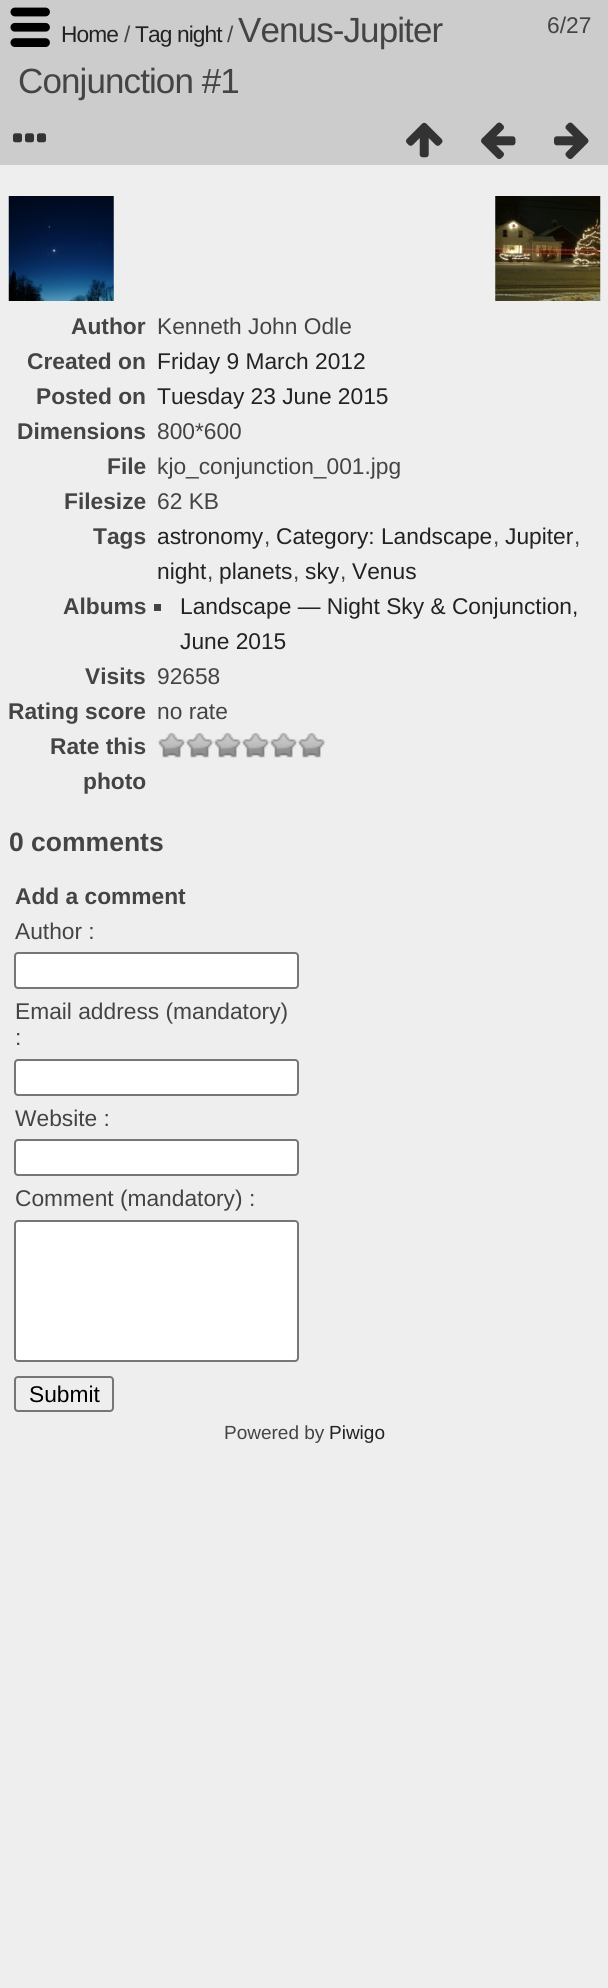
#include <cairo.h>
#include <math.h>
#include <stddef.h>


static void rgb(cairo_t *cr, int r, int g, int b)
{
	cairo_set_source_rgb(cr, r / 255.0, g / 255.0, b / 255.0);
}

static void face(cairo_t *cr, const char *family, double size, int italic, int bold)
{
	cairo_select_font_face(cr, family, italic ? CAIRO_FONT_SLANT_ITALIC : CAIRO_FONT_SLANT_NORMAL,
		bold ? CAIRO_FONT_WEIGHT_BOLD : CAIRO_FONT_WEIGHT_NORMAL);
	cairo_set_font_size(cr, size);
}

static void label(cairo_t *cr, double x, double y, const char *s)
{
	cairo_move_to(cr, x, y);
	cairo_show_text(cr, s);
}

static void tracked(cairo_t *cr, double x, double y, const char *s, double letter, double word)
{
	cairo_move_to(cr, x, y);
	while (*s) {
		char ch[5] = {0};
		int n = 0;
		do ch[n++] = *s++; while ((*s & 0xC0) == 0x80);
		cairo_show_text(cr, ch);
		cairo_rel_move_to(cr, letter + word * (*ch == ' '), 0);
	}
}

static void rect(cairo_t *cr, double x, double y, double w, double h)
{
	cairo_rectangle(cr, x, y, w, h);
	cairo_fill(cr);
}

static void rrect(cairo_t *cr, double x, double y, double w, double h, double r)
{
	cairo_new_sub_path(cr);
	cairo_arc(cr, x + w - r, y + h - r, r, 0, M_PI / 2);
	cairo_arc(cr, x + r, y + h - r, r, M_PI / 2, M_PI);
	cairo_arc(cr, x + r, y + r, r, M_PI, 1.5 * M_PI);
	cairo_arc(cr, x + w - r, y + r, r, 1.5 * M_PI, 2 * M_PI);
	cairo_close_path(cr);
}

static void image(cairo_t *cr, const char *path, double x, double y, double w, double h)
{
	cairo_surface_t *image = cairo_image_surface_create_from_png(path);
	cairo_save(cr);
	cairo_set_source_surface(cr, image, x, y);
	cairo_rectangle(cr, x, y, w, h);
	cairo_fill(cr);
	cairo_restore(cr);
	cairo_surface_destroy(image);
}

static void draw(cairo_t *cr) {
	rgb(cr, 238, 238, 238);
	cairo_paint(cr);
	rgb(cr, 204, 204, 204);
	rect(cr, 0, 0, 608, 165);
	image(cr, "image0.png", 10, 7, 40, 40);
	face(cr, "Liberation Sans", 22.75, 0, 0);
	rgb(cr, 34, 34, 34);
	tracked(cr, 61, 42, "Home", -0.9, 0);
	rgb(cr, 68, 68, 68);
	tracked(cr, 124, 42, "/", -0.9, 0);
	rgb(cr, 34, 34, 34);
	tracked(cr, 135, 42, "Tag night", -0.9, 0);
	rgb(cr, 68, 68, 68);
	tracked(cr, 227, 42, "/", -0.9, 0);
	face(cr, "Liberation Sans", 35, 0, 0);
	tracked(cr, 238, 42, "Venus-Jupiter", -0.9, 0);
	tracked(cr, 18, 93, "Conjunction #1", -0.9, 0);
	face(cr, "Liberation Sans", 22.75, 0, 0);
	label(cr, 547, 33, "6/27");
	face(cr, "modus", 42, 0, 0);
	rgb(cr, 51, 51, 51);
	label(cr, 13, 154, "…");
	label(cr, 406, 154, "↑");
	label(cr, 481, 154, "←");
	label(cr, 554, 154, "→");
	image(cr, "image1.png", 8, 196, 106, 105);
	image(cr, "image2.png", 495, 196, 106, 105);
	face(cr, "Liberation Sans", 22.75, 0, 1);
	rgb(cr, 68, 68, 68);
	label(cr, 71, 334, "Author");
	face(cr, "Liberation Sans", 22.75, 0, 0);
	label(cr, 157, 334, "Kenneth John Odle");
	face(cr, "Liberation Sans", 22.75, 0, 1);
	label(cr, 27, 369, "Created on");
	face(cr, "Liberation Sans", 22.75, 0, 0);
	rgb(cr, 34, 34, 34);
	label(cr, 157, 369, "Friday 9 March 2012");
	face(cr, "Liberation Sans", 22.75, 0, 1);
	rgb(cr, 68, 68, 68);
	label(cr, 36, 404, "Posted on");
	face(cr, "Liberation Sans", 22.75, 0, 0);
	rgb(cr, 34, 34, 34);
	label(cr, 157, 404, "Tuesday 23 June 2015");
	face(cr, "Liberation Sans", 22.75, 0, 1);
	rgb(cr, 68, 68, 68);
	label(cr, 17, 439, "Dimensions");
	face(cr, "Liberation Sans", 22.75, 0, 0);
	label(cr, 157, 439, "800*600");
	face(cr, "Liberation Sans", 22.75, 0, 1);
	label(cr, 107, 474, "File");
	face(cr, "Liberation Sans", 22.75, 0, 0);
	label(cr, 157, 474, "kjo_conjunction_001.jpg");
	face(cr, "Liberation Sans", 22.75, 0, 1);
	label(cr, 64, 509, "Filesize");
	face(cr, "Liberation Sans", 22.75, 0, 0);
	label(cr, 157, 509, "62 KB");
	face(cr, "Liberation Sans", 22.75, 0, 1);
	label(cr, 93, 544, "Tags");
	face(cr, "Liberation Sans", 22.75, 0, 0);
	rgb(cr, 34, 34, 34);
	label(cr, 157, 544, "astronomy");
	rgb(cr, 68, 68, 68);
	label(cr, 264, 544, ",");
	rgb(cr, 34, 34, 34);
	label(cr, 276, 544, "Category: Landscape");
	rgb(cr, 68, 68, 68);
	label(cr, 493, 544, ",");
	rgb(cr, 34, 34, 34);
	label(cr, 505, 544, "Jupiter");
	rgb(cr, 68, 68, 68);
	label(cr, 574, 544, ",");
	rgb(cr, 34, 34, 34);
	label(cr, 157, 579, "night");
	rgb(cr, 68, 68, 68);
	label(cr, 207, 579, ",");
	rgb(cr, 34, 34, 34);
	label(cr, 219, 579, "planets");
	rgb(cr, 68, 68, 68);
	label(cr, 293, 579, ",");
	rgb(cr, 34, 34, 34);
	label(cr, 305, 579, "sky");
	rgb(cr, 68, 68, 68);
	label(cr, 340, 579, ",");
	rgb(cr, 34, 34, 34);
	label(cr, 352, 579, "Venus");
	face(cr, "Liberation Sans", 22.75, 0, 1);
	rgb(cr, 68, 68, 68);
	label(cr, 63, 614, "Albums");
	rect(cr, 154, 604, 7, 7);
	face(cr, "Liberation Sans", 22.75, 0, 0);
	rgb(cr, 34, 34, 34);
	label(cr, 180, 614, "Landscape — Night Sky & Conjunction,");
	label(cr, 180, 649, "June 2015");
	face(cr, "Liberation Sans", 22.75, 0, 1);
	rgb(cr, 68, 68, 68);
	label(cr, 85, 684, "Visits");
	face(cr, "Liberation Sans", 22.75, 0, 0);
	label(cr, 157, 684, "92658");
	face(cr, "Liberation Sans", 22.75, 0, 1);
	label(cr, 8, 719, "Rating score");
	face(cr, "Liberation Sans", 22.75, 0, 0);
	label(cr, 157, 719, "no rate");
	face(cr, "Liberation Sans", 22.75, 0, 1);
	label(cr, 50, 754, "Rate this");
	label(cr, 83, 789, "photo");
	image(cr, "image3.png", 157, 733, 29, 25);
	image(cr, "image4.png", 185, 733, 29, 25);
	image(cr, "image4.png", 213, 733, 29, 25);
	image(cr, "image5.png", 241, 733, 29, 25);
	image(cr, "image6.png", 269, 733, 29, 25);
	image(cr, "image6.png", 297, 733, 29, 25);
	face(cr, "Liberation Sans", 26.5, 0, 1);
	label(cr, 9, 851, "0 comments");
	face(cr, "Liberation Sans", 22.75, 0, 1);
	label(cr, 15, 904, "Add a comment");
	face(cr, "Liberation Sans", 22.75, 0, 0);
	label(cr, 15, 939, "Author :");
	rgb(cr, 255, 255, 255);
	rrect(cr, 15, 953, 283, 35, 3);
	cairo_fill_preserve(cr);
	rgb(cr, 118, 118, 118);
	cairo_stroke(cr);
	rgb(cr, 68, 68, 68);
	label(cr, 15, 1019, "Email address (mandatory)");
	label(cr, 15, 1045, ":");
	rgb(cr, 255, 255, 255);
	rrect(cr, 15, 1060, 283, 35, 3);
	cairo_fill_preserve(cr);
	rgb(cr, 118, 118, 118);
	cairo_stroke(cr);
	rgb(cr, 68, 68, 68);
	label(cr, 15, 1126, "Website :");
	rgb(cr, 255, 255, 255);
	rrect(cr, 15, 1140, 283, 35, 3);
	cairo_fill_preserve(cr);
	rgb(cr, 118, 118, 118);
	cairo_stroke(cr);
	rgb(cr, 68, 68, 68);
	label(cr, 15, 1206, "Comment (mandatory) :");
	rgb(cr, 255, 255, 255);
	rrect(cr, 15, 1221, 283, 140, 3);
	cairo_fill_preserve(cr);
	rgb(cr, 118, 118, 118);
	cairo_stroke(cr);
	rrect(cr, 15, 1377, 98, 34, 3);
	cairo_stroke(cr);
	rgb(cr, 0, 0, 0);
	label(cr, 29, 1402, "Submit");
	face(cr, "Liberation Sans", 19, 0, 0);
	rgb(cr, 68, 68, 68);
	label(cr, 224, 1439, "Powered by");
	rgb(cr, 34, 34, 34);
	label(cr, 329, 1439, "Piwigo");
}

int main(void) {
	cairo_surface_t *surface = cairo_image_surface_create(CAIRO_FORMAT_RGB24, 608, 1988);
	cairo_t *cr = cairo_create(surface);
	cairo_font_options_t *options = cairo_font_options_create();
	cairo_font_options_set_hint_metrics(options, CAIRO_HINT_METRICS_OFF);
	cairo_font_options_set_hint_style(options, CAIRO_HINT_STYLE_NONE);
	cairo_set_font_options(cr, options);
	cairo_set_miter_limit(cr, 4);
	draw(cr);
	cairo_surface_write_to_png(surface, "render.png");
	cairo_font_options_destroy(options);
	cairo_destroy(cr);
	cairo_surface_destroy(surface);
	return 0;
}
